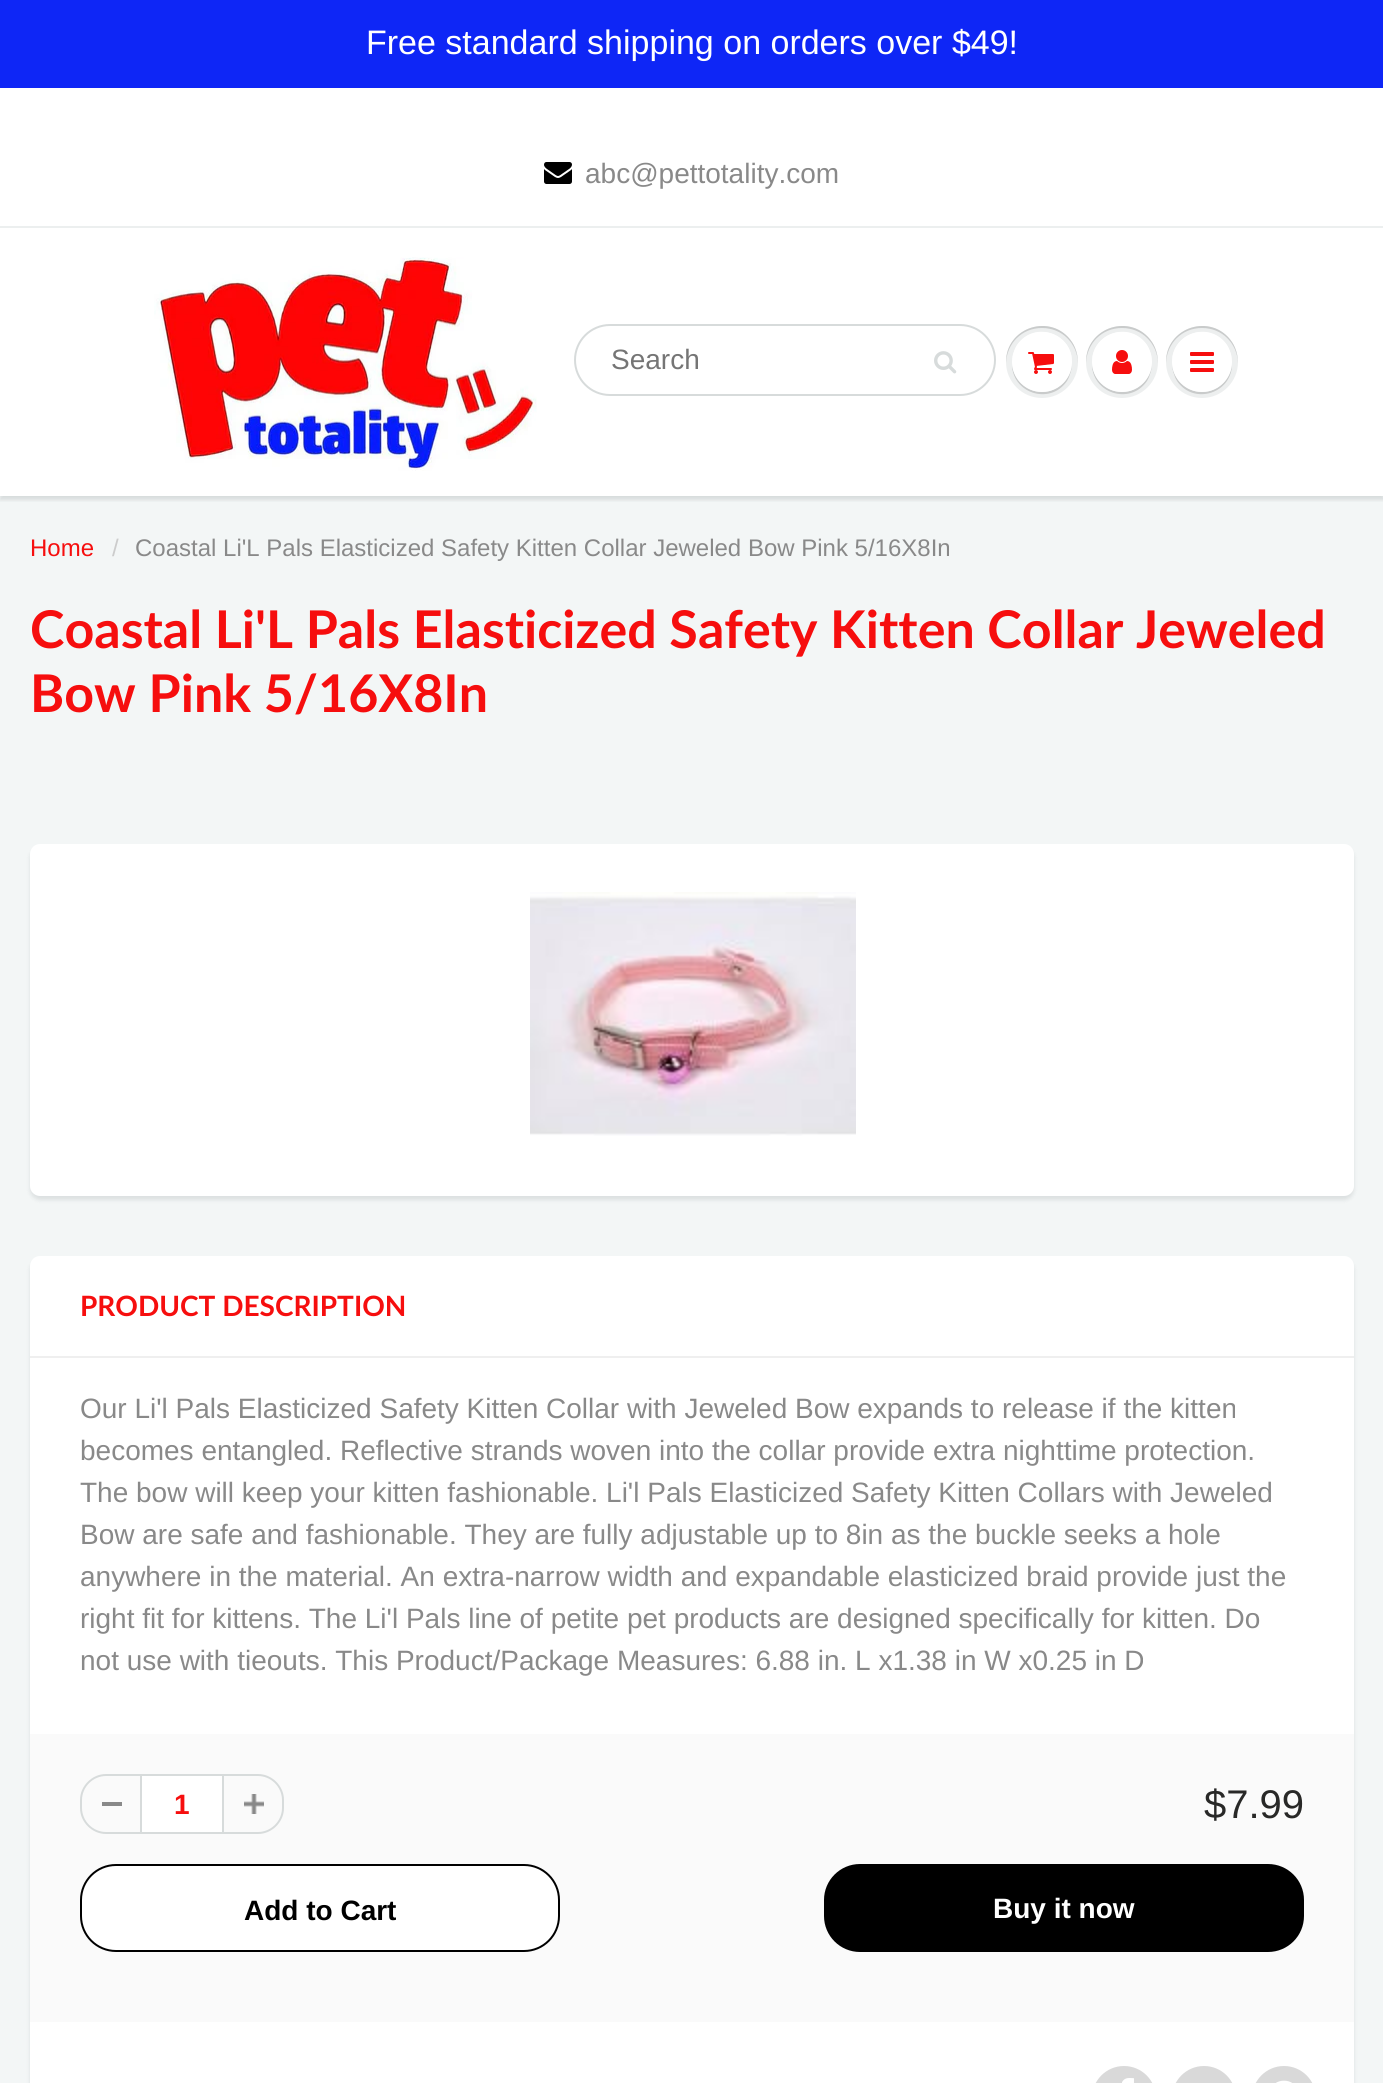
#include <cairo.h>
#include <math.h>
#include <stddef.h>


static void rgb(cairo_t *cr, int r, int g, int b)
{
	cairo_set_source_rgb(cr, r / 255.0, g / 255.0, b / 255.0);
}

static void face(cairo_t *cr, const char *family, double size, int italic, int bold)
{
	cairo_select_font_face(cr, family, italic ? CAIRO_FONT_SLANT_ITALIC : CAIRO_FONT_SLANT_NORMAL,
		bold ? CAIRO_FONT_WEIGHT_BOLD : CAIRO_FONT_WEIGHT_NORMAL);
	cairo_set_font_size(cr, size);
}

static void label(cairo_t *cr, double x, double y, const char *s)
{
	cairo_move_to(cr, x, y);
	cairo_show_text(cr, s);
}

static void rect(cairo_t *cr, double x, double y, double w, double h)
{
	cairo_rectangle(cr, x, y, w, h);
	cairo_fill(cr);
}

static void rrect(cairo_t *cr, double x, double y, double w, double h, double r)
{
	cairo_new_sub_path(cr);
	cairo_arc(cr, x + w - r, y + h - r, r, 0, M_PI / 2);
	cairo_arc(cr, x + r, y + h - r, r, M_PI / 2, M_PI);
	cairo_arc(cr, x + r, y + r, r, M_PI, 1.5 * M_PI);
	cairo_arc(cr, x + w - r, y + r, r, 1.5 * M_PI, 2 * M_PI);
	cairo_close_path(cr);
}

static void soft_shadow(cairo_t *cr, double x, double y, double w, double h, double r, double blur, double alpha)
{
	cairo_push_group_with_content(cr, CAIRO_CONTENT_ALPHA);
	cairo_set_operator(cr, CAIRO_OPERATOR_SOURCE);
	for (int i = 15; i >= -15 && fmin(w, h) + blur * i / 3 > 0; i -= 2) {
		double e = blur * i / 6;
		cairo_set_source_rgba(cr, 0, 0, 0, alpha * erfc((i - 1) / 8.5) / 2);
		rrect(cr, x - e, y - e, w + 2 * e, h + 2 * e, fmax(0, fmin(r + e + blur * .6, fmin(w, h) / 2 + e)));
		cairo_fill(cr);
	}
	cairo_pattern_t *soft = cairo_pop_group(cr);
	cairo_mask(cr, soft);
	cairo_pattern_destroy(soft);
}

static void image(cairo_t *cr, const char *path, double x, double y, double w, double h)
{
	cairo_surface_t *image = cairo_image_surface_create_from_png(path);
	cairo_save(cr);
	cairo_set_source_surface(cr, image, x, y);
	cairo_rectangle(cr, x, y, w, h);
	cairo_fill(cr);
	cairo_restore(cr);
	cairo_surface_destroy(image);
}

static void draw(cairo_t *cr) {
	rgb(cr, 255, 255, 255);
	cairo_paint(cr);
	rgb(cr, 14, 38, 246);
	rect(cr, 0, 0, 1383, 88);
	face(cr, "Liberation Sans", 34, 0, 0);
	rgb(cr, 255, 255, 255);
	label(cr, 366, 54, "Free standard shipping on orders over $49!");
	image(cr, "image0.png", 544, 162, 28, 22);
	face(cr, "Liberation Sans", 28, 0, 0);
	rgb(cr, 137, 137, 137);
	label(cr, 585, 183, "abc@pettotality.com");
	rgb(cr, 243, 246, 246);
	rect(cr, 0, 496, 1383, 1587);
	cairo_save(cr);
	cairo_rectangle(cr, 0, 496, 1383, 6);
	cairo_clip(cr);
	rgb(cr, 11, 25, 28);
	soft_shadow(cr, 0, 230, 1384, 270, 0, 2, 0.12);
	cairo_restore(cr);
	rgb(cr, 236, 239, 239);
	rect(cr, 0, 226, 1383, 2);
	image(cr, "image1.png", 154, 257, 383, 214);
	rrect(cr, 575, 325, 420, 70, 35);
	rgb(cr, 215, 219, 219);
	cairo_stroke(cr);
	rgb(cr, 117, 117, 117);
	label(cr, 611, 369, "Search");
	image(cr, "image2.png", 934, 351, 23, 23);
	rgb(cr, 237, 239, 239);
	cairo_arc(cr, 1042, 362, 36, 0, 2 * M_PI);
	cairo_fill(cr);
	rgb(cr, 201, 203, 203);
	cairo_new_path(cr);
	cairo_move_to(cr, 1072, 363);
	cairo_curve_to(cr, 1071, 379, 1058, 392, 1042, 392);
	cairo_curve_to(cr, 1026, 392, 1013, 379, 1012, 363);
	cairo_curve_to(cr, 1011, 393, 1050, 406, 1067, 381);
	cairo_curve_to(cr, 1070, 376, 1072, 369, 1072, 363);
	cairo_close_path(cr);
	cairo_fill(cr);
	cairo_new_path(cr);
	cairo_move_to(cr, 1042, 328);
	cairo_curve_to(cr, 1062, 328, 1077, 343, 1078, 363);
	cairo_curve_to(cr, 1078, 356, 1076, 348, 1072, 342);
	cairo_curve_to(cr, 1052, 312, 1005, 327, 1006, 363);
	cairo_curve_to(cr, 1007, 343, 1022, 328, 1042, 328);
	cairo_close_path(cr);
	cairo_fill(cr);
	rgb(cr, 255, 255, 255);
	cairo_arc(cr, 1042, 362, 30, 0, 2 * M_PI);
	cairo_fill(cr);
	cairo_new_path(cr);
	cairo_move_to(cr, 1042, 334);
	cairo_curve_to(cr, 1059, 334, 1071, 346, 1072, 363);
	cairo_curve_to(cr, 1073, 333, 1034, 320, 1017, 345);
	cairo_curve_to(cr, 1014, 350, 1012, 357, 1012, 363);
	cairo_curve_to(cr, 1013, 346, 1025, 334, 1042, 334);
	cairo_close_path(cr);
	cairo_fill(cr);
	image(cr, "image3.png", 1028, 352, 26, 22);
	rgb(cr, 237, 239, 239);
	cairo_arc(cr, 1122, 362, 36, 0, 2 * M_PI);
	cairo_fill(cr);
	rgb(cr, 201, 203, 203);
	cairo_new_path(cr);
	cairo_move_to(cr, 1152, 363);
	cairo_curve_to(cr, 1151, 379, 1138, 392, 1122, 392);
	cairo_curve_to(cr, 1106, 392, 1093, 379, 1092, 363);
	cairo_curve_to(cr, 1091, 393, 1130, 406, 1147, 381);
	cairo_curve_to(cr, 1150, 376, 1152, 369, 1152, 363);
	cairo_close_path(cr);
	cairo_fill(cr);
	cairo_new_path(cr);
	cairo_move_to(cr, 1122, 328);
	cairo_curve_to(cr, 1142, 328, 1157, 343, 1158, 363);
	cairo_curve_to(cr, 1158, 356, 1156, 348, 1152, 342);
	cairo_curve_to(cr, 1132, 312, 1085, 327, 1086, 363);
	cairo_curve_to(cr, 1087, 343, 1102, 328, 1122, 328);
	cairo_close_path(cr);
	cairo_fill(cr);
	rgb(cr, 255, 255, 255);
	cairo_arc(cr, 1122, 362, 30, 0, 2 * M_PI);
	cairo_fill(cr);
	cairo_new_path(cr);
	cairo_move_to(cr, 1122, 334);
	cairo_curve_to(cr, 1139, 334, 1151, 346, 1152, 363);
	cairo_curve_to(cr, 1152, 357, 1150, 350, 1147, 345);
	cairo_curve_to(cr, 1130, 320, 1091, 333, 1092, 363);
	cairo_curve_to(cr, 1093, 346, 1105, 334, 1122, 334);
	cairo_close_path(cr);
	cairo_fill(cr);
	image(cr, "image4.png", 1112, 350, 20, 24);
	rgb(cr, 237, 239, 239);
	cairo_arc(cr, 1202, 362, 36, 0, 2 * M_PI);
	cairo_fill(cr);
	rgb(cr, 201, 203, 203);
	cairo_new_path(cr);
	cairo_move_to(cr, 1232, 363);
	cairo_curve_to(cr, 1231, 379, 1218, 392, 1202, 392);
	cairo_curve_to(cr, 1186, 392, 1173, 379, 1172, 363);
	cairo_curve_to(cr, 1172, 369, 1174, 376, 1177, 381);
	cairo_curve_to(cr, 1194, 406, 1233, 393, 1232, 363);
	cairo_close_path(cr);
	cairo_fill(cr);
	cairo_new_path(cr);
	cairo_move_to(cr, 1202, 328);
	cairo_curve_to(cr, 1222, 328, 1237, 343, 1238, 363);
	cairo_curve_to(cr, 1238, 356, 1236, 348, 1232, 342);
	cairo_curve_to(cr, 1212, 312, 1165, 327, 1166, 363);
	cairo_curve_to(cr, 1167, 343, 1182, 328, 1202, 328);
	cairo_close_path(cr);
	cairo_fill(cr);
	rgb(cr, 255, 255, 255);
	cairo_arc(cr, 1202, 362, 30, 0, 2 * M_PI);
	cairo_fill(cr);
	cairo_new_path(cr);
	cairo_move_to(cr, 1202, 334);
	cairo_curve_to(cr, 1219, 334, 1231, 346, 1232, 363);
	cairo_curve_to(cr, 1232, 357, 1230, 350, 1227, 345);
	cairo_curve_to(cr, 1210, 320, 1171, 333, 1172, 363);
	cairo_curve_to(cr, 1173, 346, 1185, 334, 1202, 334);
	cairo_close_path(cr);
	cairo_fill(cr);
	image(cr, "image5.png", 1190, 352, 24, 20);
	face(cr, "Liberation Sans", 24, 0, 0);
	rgb(cr, 246, 14, 14);
	label(cr, 30, 556, "Home");
	rgb(cr, 204, 204, 204);
	label(cr, 112, 556, "/");
	rgb(cr, 137, 137, 137);
	label(cr, 135, 556, "Coastal Li'L Pals Elasticized Safety Kitten Collar Jeweled Bow Pink 5/16X8In");
	face(cr, "Lato", 52, 0, 1);
	rgb(cr, 246, 14, 14);
	label(cr, 30, 648, "Coastal Li'L Pals Elasticized Safety Kitten Collar Jeweled");
	label(cr, 30, 712, "Bow Pink 5/16X8In");
	rgb(cr, 11, 25, 28);
	soft_shadow(cr, 30, 848, 1324, 352, 10, 2, 0.1);
	rgb(cr, 255, 255, 255);
	rrect(cr, 30, 844, 1324, 352, 10);
	cairo_fill(cr);
	image(cr, "image6.png", 530, 892, 326, 244);
	rgb(cr, 11, 25, 28);
	soft_shadow(cr, 30, 1260, 1324, 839, 10, 2, 0.1);
	rgb(cr, 255, 255, 255);
	rrect(cr, 30, 1256, 1324, 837, 10);
	cairo_fill(cr);
	rgb(cr, 239, 239, 239);
	rect(cr, 30, 1356, 1324, 2);
	face(cr, "Lato", 28, 0, 1);
	rgb(cr, 246, 14, 14);
	label(cr, 80, 1316, "PRODUCT DESCRIPTION");
	face(cr, "Liberation Sans", 28, 0, 0);
	rgb(cr, 137, 137, 137);
	label(cr, 80, 1418, "Our Li'l Pals Elasticized Safety Kitten Collar with Jeweled Bow expands to release if the kitten");
	label(cr, 80, 1460, "becomes entangled. Reflective strands woven into the collar provide extra nighttime protection.");
	label(cr, 80, 1502, "The bow will keep your kitten fashionable. Li'l Pals Elasticized Safety Kitten Collars with Jeweled");
	label(cr, 80, 1544, "Bow are safe and fashionable. They are fully adjustable up to 8in as the buckle seeks a hole");
	label(cr, 80, 1586, "anywhere in the material. An extra-narrow width and expandable elasticized braid provide just the");
	label(cr, 80, 1628, "right fit for kittens. The Li'l Pals line of petite pet products are designed specifically for kitten. Do");
	label(cr, 80, 1670, "not use with tieouts. This Product/Package Measures: 6.88 in. L x1.38 in W x0.25 in D");
	rgb(cr, 250, 250, 250);
	rect(cr, 30, 1734, 1324, 288);
	rgb(cr, 137, 137, 137);
	rect(cr, 102, 1802, 20, 4);
	rgb(cr, 215, 219, 219);
	cairo_set_fill_rule(cr, CAIRO_FILL_RULE_EVEN_ODD);
	cairo_new_path(cr);
	cairo_move_to(cr, 106, 1774);
	cairo_line_to(cr, 140, 1774);
	cairo_line_to(cr, 140, 1834);
	cairo_line_to(cr, 106, 1834);
	cairo_curve_to(cr, 92, 1834, 80, 1822, 80, 1808);
	cairo_line_to(cr, 80, 1800);
	cairo_curve_to(cr, 80, 1786, 92, 1774, 106, 1774);
	cairo_close_path(cr);
	cairo_move_to(cr, 106, 1776);
	cairo_line_to(cr, 140, 1776);
	cairo_line_to(cr, 140, 1832);
	cairo_line_to(cr, 106, 1832);
	cairo_curve_to(cr, 93, 1832, 82, 1821, 82, 1808);
	cairo_line_to(cr, 82, 1800);
	cairo_curve_to(cr, 82, 1787, 93, 1776, 106, 1776);
	cairo_close_path(cr);
	cairo_fill(cr);
	rgb(cr, 255, 255, 255);
	cairo_rectangle(cr, 141, 1775, 82, 58);
	cairo_fill_preserve(cr);
	rgb(cr, 215, 219, 219);
	cairo_stroke(cr);
	face(cr, "Liberation Sans", 28, 0, 1);
	rgb(cr, 246, 14, 14);
	label(cr, 174, 1814, "1");
	image(cr, "image7.png", 244, 1794, 20, 20);
	rgb(cr, 215, 219, 219);
	cairo_new_path(cr);
	cairo_move_to(cr, 224, 1774);
	cairo_line_to(cr, 258, 1774);
	cairo_curve_to(cr, 272, 1774, 284, 1786, 284, 1800);
	cairo_line_to(cr, 284, 1808);
	cairo_curve_to(cr, 284, 1822, 272, 1834, 258, 1834);
	cairo_line_to(cr, 224, 1834);
	cairo_close_path(cr);
	cairo_move_to(cr, 224, 1776);
	cairo_line_to(cr, 258, 1776);
	cairo_curve_to(cr, 271, 1776, 282, 1787, 282, 1800);
	cairo_line_to(cr, 282, 1808);
	cairo_curve_to(cr, 282, 1821, 271, 1832, 258, 1832);
	cairo_line_to(cr, 224, 1832);
	cairo_close_path(cr);
	cairo_fill(cr);
	face(cr, "Liberation Sans", 40, 0, 0);
	rgb(cr, 40, 40, 39);
	label(cr, 1204, 1818, "$7.99");
	rgb(cr, 255, 255, 255);
	rrect(cr, 81, 1865, 478, 86, 35);
	cairo_fill_preserve(cr);
	rgb(cr, 0, 0, 0);
	cairo_stroke(cr);
	face(cr, "Liberation Sans", 28, 0, 1);
	label(cr, 244, 1920, "Add to Cart");
	rrect(cr, 824, 1864, 480, 88, 36);
	cairo_fill(cr);
	rgb(cr, 255, 255, 255);
	label(cr, 993, 1918, "Buy it now");
	rgb(cr, 217, 217, 217);
	rrect(cr, 1092, 2066, 64, 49, 32);
	cairo_fill(cr);
	image(cr, "image8.png", 1122, 2078, 12, 5);
	rrect(cr, 1172, 2066, 64, 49, 32);
	cairo_fill(cr);
	rrect(cr, 1252, 2066, 64, 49, 32);
	cairo_fill(cr);
	image(cr, "image9.png", 1276, 2080, 16, 3);
}

int main(void) {
	cairo_surface_t *surface = cairo_image_surface_create(CAIRO_FORMAT_RGB24, 1383, 2083);
	cairo_t *cr = cairo_create(surface);
	cairo_font_options_t *options = cairo_font_options_create();
	cairo_font_options_set_hint_metrics(options, CAIRO_HINT_METRICS_OFF);
	cairo_font_options_set_hint_style(options, CAIRO_HINT_STYLE_NONE);
	cairo_set_font_options(cr, options);
	cairo_set_miter_limit(cr, 4);
	draw(cr);
	cairo_surface_write_to_png(surface, "render.png");
	cairo_font_options_destroy(options);
	cairo_destroy(cr);
	cairo_surface_destroy(surface);
	return 0;
}
